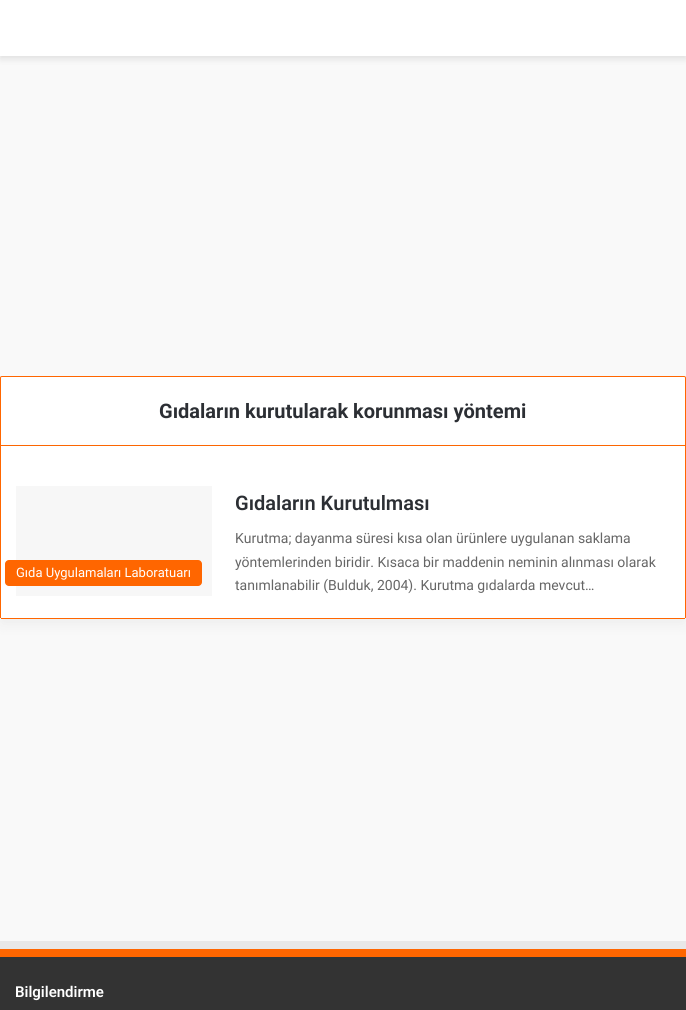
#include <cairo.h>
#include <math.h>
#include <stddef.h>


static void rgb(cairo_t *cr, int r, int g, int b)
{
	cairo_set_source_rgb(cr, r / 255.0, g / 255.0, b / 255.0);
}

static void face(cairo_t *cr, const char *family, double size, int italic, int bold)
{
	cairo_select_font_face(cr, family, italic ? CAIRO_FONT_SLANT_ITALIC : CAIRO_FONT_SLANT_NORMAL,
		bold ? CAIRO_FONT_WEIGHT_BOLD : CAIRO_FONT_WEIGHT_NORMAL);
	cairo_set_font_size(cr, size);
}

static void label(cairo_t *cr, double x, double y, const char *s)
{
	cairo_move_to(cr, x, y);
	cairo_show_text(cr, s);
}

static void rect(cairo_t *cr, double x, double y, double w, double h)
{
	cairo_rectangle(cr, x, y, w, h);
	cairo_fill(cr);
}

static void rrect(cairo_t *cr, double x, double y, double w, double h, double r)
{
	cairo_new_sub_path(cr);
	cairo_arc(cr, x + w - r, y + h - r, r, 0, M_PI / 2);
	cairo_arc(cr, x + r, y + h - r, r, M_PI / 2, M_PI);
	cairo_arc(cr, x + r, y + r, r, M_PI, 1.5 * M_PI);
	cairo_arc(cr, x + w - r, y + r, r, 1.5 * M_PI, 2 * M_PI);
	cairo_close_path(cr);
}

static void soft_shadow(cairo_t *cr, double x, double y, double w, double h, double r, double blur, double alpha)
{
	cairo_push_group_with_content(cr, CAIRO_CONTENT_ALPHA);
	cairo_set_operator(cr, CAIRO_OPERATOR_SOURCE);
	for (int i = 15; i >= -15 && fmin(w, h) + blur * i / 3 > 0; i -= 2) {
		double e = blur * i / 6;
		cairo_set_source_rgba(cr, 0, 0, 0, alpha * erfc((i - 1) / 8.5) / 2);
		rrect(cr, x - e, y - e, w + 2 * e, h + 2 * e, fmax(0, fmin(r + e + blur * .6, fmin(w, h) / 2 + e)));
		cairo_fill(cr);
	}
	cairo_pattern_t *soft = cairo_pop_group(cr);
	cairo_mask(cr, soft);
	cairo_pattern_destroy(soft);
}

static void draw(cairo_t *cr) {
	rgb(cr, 249, 249, 249);
	cairo_paint(cr);
	rgb(cr, 0, 0, 0);
	soft_shadow(cr, 0, 3, 686, 56, 0, 3.5, 0.1);
	rgb(cr, 255, 255, 255);
	rect(cr, 0, 0, 686, 56);
	cairo_new_path(cr);
	cairo_move_to(cr, 2, 376.5);
	cairo_line_to(cr, 684, 376.5);
	cairo_curve_to(cr, 685, 376.5, 685.5, 377, 685.5, 378);
	cairo_line_to(cr, 685.5, 445.5);
	cairo_line_to(cr, 0.5, 445.5);
	cairo_line_to(cr, 0.5, 378);
	cairo_curve_to(cr, 0.5, 377, 1, 376.5, 2, 376.5);
	cairo_close_path(cr);
	cairo_fill_preserve(cr);
	rgb(cr, 255, 102, 0);
	cairo_set_line_width(cr, 1);
	cairo_stroke(cr);
	face(cr, "Roboto", 20, 0, 1);
	rgb(cr, 44, 47, 52);
	label(cr, 159, 418, "Gıdaların kurutularak korunması yöntemi");
	rgb(cr, 0, 0, 0);
	soft_shadow(cr, 0, 451, 686, 173, 2, 7.5, 0.05);
	rgb(cr, 255, 255, 255);
	cairo_new_path(cr);
	cairo_move_to(cr, 1, 446);
	cairo_line_to(cr, 685, 446);
	cairo_line_to(cr, 685, 617);
	cairo_curve_to(cr, 685, 617.5, 684.5, 618, 684, 618);
	cairo_line_to(cr, 2, 618);
	cairo_curve_to(cr, 1.5, 618, 1, 617.5, 1, 617);
	cairo_close_path(cr);
	cairo_fill(cr);
	rgb(cr, 255, 102, 0);
	rect(cr, 685, 446, 1, 172);
	rect(cr, 1, 618, 684, 1);
	rect(cr, 0, 446, 1, 172);
	rgb(cr, 247, 247, 247);
	rect(cr, 16, 486, 196, 110);
	rgb(cr, 255, 102, 0);
	rrect(cr, 5, 560, 197, 26, 4);
	cairo_fill(cr);
	face(cr, "Roboto", 13, 0, 0);
	rgb(cr, 255, 255, 255);
	label(cr, 16, 577, "Gıda Uygulamaları Laboratuarı");
	face(cr, "Roboto SemiBold", 20, 0, 0);
	rgb(cr, 44, 47, 52);
	label(cr, 235, 510, "Gıdaların Kurutulması");
	face(cr, "Roboto", 14, 0, 0);
	rgb(cr, 102, 102, 102);
	label(cr, 235, 543, "Kurutma; dayanma süresi kısa olan ürünlere uygulanan saklama");
	label(cr, 235, 567, "yöntemlerinden biridir. Kısaca bir maddenin neminin alınması olarak");
	label(cr, 235, 590, "tanımlanabilir (Bulduk, 2004). Kurutma gıdalarda mevcut…");
	rgb(cr, 51, 51, 51);
	rect(cr, 0, 957, 686, 53);
	rgb(cr, 232, 232, 232);
	rect(cr, 0, 941, 686, 8);
	rgb(cr, 255, 102, 0);
	rect(cr, 0, 949, 686, 8);
	face(cr, "Roboto SemiBold", 15, 0, 0);
	rgb(cr, 255, 255, 255);
	label(cr, 15, 997, "Bilgilendirme");
}

int main(void) {
	cairo_surface_t *surface = cairo_image_surface_create(CAIRO_FORMAT_RGB24, 686, 1010);
	cairo_t *cr = cairo_create(surface);
	cairo_font_options_t *options = cairo_font_options_create();
	cairo_font_options_set_hint_metrics(options, CAIRO_HINT_METRICS_OFF);
	cairo_font_options_set_hint_style(options, CAIRO_HINT_STYLE_NONE);
	cairo_set_font_options(cr, options);
	cairo_set_miter_limit(cr, 4);
	draw(cr);
	cairo_surface_write_to_png(surface, "render.png");
	cairo_font_options_destroy(options);
	cairo_destroy(cr);
	cairo_surface_destroy(surface);
	return 0;
}
